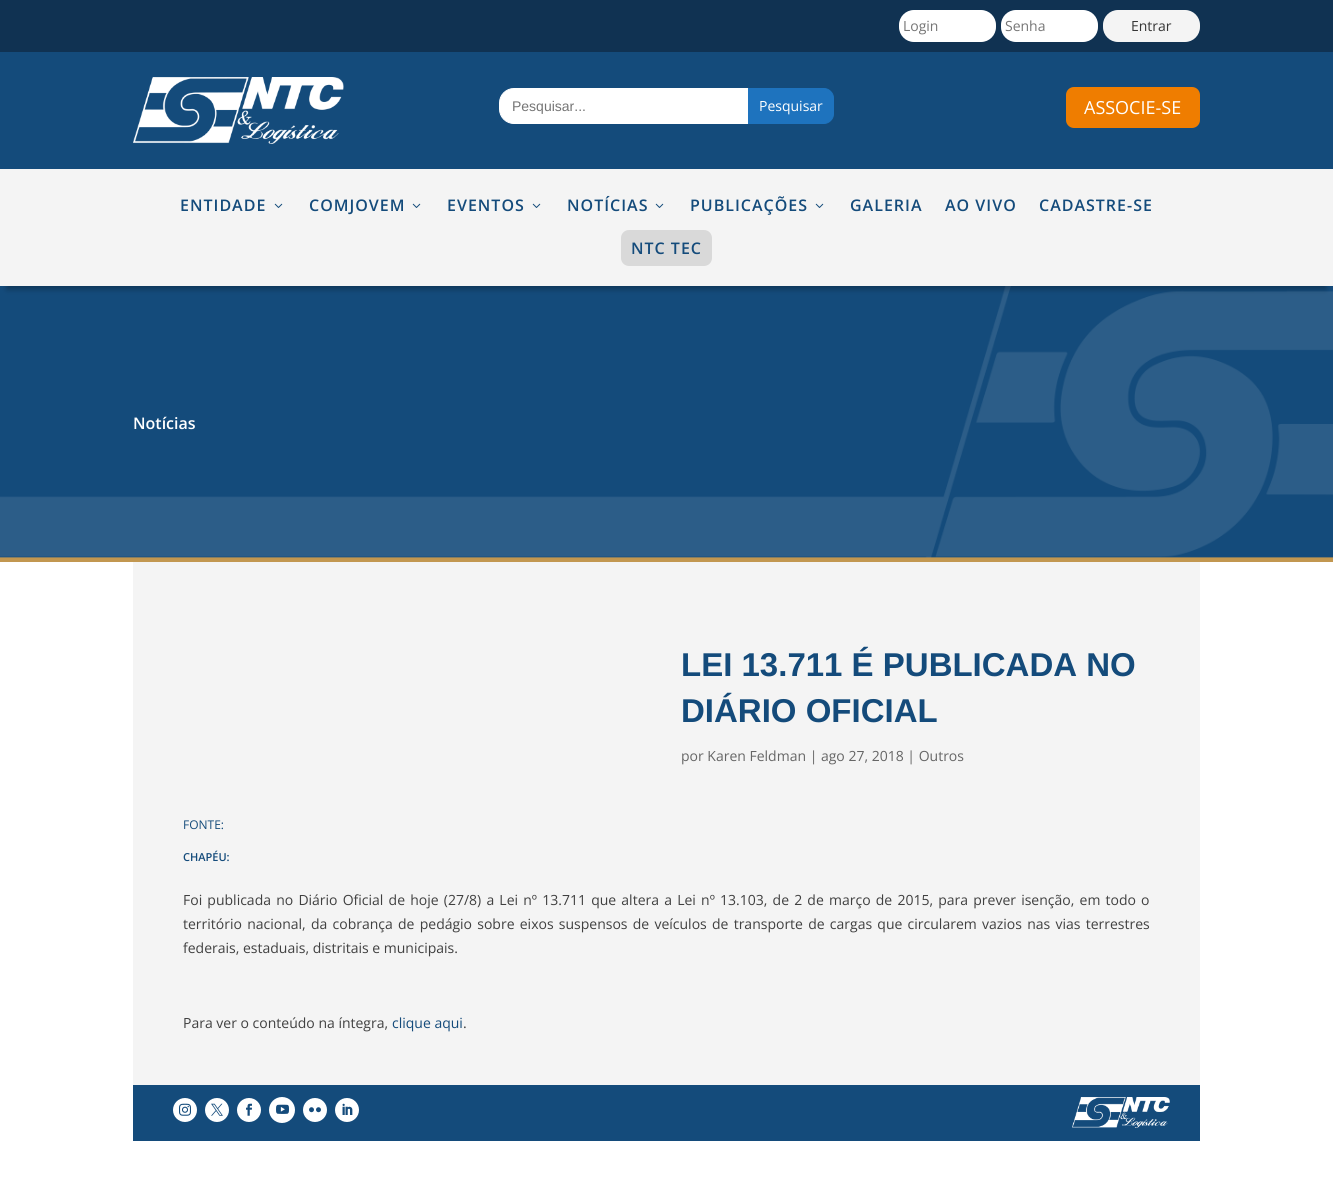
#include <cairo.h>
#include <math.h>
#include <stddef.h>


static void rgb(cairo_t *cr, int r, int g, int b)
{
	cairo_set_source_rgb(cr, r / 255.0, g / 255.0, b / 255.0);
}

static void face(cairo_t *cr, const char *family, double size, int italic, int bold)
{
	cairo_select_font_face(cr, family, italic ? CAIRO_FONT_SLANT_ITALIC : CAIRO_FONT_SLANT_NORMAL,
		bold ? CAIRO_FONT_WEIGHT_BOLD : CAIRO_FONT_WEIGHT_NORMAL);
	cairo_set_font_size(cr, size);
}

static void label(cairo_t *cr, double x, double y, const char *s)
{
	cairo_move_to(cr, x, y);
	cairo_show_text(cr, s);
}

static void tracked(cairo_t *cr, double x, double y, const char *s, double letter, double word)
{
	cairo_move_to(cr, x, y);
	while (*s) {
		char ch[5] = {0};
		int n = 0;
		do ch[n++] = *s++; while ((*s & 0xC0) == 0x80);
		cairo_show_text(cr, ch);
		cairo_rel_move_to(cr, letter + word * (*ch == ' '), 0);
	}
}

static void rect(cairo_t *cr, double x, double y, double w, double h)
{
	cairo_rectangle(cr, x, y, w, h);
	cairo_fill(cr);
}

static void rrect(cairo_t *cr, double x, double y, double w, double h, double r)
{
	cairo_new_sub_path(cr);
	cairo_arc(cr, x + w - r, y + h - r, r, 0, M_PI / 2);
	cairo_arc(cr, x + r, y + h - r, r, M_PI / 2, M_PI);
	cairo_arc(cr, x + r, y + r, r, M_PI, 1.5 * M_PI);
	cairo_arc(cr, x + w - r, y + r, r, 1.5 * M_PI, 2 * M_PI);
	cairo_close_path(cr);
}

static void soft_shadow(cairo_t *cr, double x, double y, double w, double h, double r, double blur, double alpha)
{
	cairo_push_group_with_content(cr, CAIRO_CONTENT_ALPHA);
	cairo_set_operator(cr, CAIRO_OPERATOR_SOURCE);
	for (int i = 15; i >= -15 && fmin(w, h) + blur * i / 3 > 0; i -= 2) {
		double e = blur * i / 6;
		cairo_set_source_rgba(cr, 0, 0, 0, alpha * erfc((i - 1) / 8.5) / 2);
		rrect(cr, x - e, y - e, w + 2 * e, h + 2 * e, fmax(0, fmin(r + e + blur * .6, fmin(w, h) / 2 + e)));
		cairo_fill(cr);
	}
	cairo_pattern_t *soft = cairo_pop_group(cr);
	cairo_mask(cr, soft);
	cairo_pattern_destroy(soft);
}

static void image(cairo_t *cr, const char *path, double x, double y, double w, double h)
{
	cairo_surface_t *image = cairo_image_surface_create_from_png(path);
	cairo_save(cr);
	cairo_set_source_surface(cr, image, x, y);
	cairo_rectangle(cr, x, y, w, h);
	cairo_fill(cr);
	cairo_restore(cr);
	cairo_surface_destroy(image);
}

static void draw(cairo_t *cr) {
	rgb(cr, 255, 255, 255);
	cairo_paint(cr);
	rgb(cr, 16, 50, 82);
	rect(cr, 0, 0, 1333, 52);
	rgb(cr, 255, 255, 255);
	rrect(cr, 899, 10, 97, 32, 15);
	cairo_fill(cr);
	face(cr, "Open Sans", 14, 0, 0);
	rgb(cr, 117, 117, 117);
	label(cr, 903, 31, "Login");
	rgb(cr, 255, 255, 255);
	rrect(cr, 1001, 10, 97, 32, 15);
	cairo_fill(cr);
	rgb(cr, 117, 117, 117);
	label(cr, 1005, 31, "Senha");
	rgb(cr, 244, 244, 244);
	rrect(cr, 1103, 10, 97, 32, 15);
	cairo_fill(cr);
	rgb(cr, 53, 53, 53);
	label(cr, 1131, 31, "Entrar");
	rgb(cr, 20, 75, 123);
	rect(cr, 0, 52, 1333, 117);
	image(cr, "image0.png", 133, 77, 211, 67);
	rgb(cr, 255, 255, 255);
	rrect(cr, 499.5, 88.5, 334, 35, 14.5);
	cairo_fill_preserve(cr);
	cairo_set_line_width(cr, 1);
	cairo_stroke(cr);
	face(cr, "Liberation Sans", 14, 0, 0);
	rgb(cr, 117, 117, 117);
	label(cr, 512, 111, "Pesquisar...");
	rgb(cr, 30, 115, 190);
	cairo_new_path(cr);
	cairo_move_to(cr, 748.5, 88.5);
	cairo_line_to(cr, 824, 88.5);
	cairo_curve_to(cr, 829, 88.5, 833.5, 93, 833.5, 98);
	cairo_line_to(cr, 833.5, 114);
	cairo_curve_to(cr, 833.5, 119, 829, 123.5, 824, 123.5);
	cairo_line_to(cr, 748.5, 123.5);
	cairo_close_path(cr);
	cairo_fill_preserve(cr);
	cairo_stroke(cr);
	face(cr, "Open Sans", 14, 0, 0);
	rgb(cr, 255, 255, 255);
	label(cr, 759, 111, "Pesquisar");
	rgb(cr, 239, 125, 0);
	rrect(cr, 1066, 87, 134, 41, 8);
	cairo_fill(cr);
	face(cr, "Open Sans", 18, 0, 0);
	rgb(cr, 255, 255, 255);
	label(cr, 1084, 114, "ASSOCIE-SE");
	image(cr, "image2.png", 0, 286, 1333, 276);
	rgb(cr, 0, 0, 0);
	soft_shadow(cr, 7, 186, 1319, 103, 0, 3, 0.3);
	rgb(cr, 244, 244, 244);
	rect(cr, 0, 169, 1333, 117);
	face(cr, "Open Sans SemiBold", 16, 0, 0);
	rgb(cr, 20, 75, 123);
	tracked(cr, 180, 211, "ENTIDADE", 1, 0);
	image(cr, "image1.png", 274, 203, 9, 5);
	tracked(cr, 309, 211, "COMJOVEM", 1, 0);
	image(cr, "image1.png", 412, 203, 9, 5);
	tracked(cr, 447, 211, "EVENTOS", 1, 0);
	image(cr, "image1.png", 532, 203, 9, 5);
	tracked(cr, 567, 211, "NOTÍCIAS", 1, 0);
	image(cr, "image1.png", 655, 203, 9, 5);
	tracked(cr, 690, 211, "PUBLICAÇÕES", 1, 0);
	image(cr, "image1.png", 815, 203, 9, 5);
	tracked(cr, 850, 211, "GALERIA", 1, 0);
	tracked(cr, 945, 211, "AO VIVO", 1, 0);
	tracked(cr, 1039, 211, "CADASTRE-SE", 1, 0);
	rgb(cr, 217, 217, 217);
	rrect(cr, 621, 230, 91, 36, 8);
	cairo_fill(cr);
	rgb(cr, 20, 75, 123);
	tracked(cr, 631, 254, "NTC TEC", 1, 0);
	rgb(cr, 255, 255, 255);
	label(cr, 133, 429, "Notícias");
	rgb(cr, 244, 244, 244);
	rect(cr, 133, 562, 1067, 523);
	face(cr, "Liberation Sans", 33, 0, 1);
	rgb(cr, 20, 75, 123);
	label(cr, 681, 676, "LEI 13.711 É PUBLICADA NO");
	label(cr, 681, 722, "DIÁRIO OFICIAL");
	face(cr, "Open Sans", 14, 0, 0);
	rgb(cr, 102, 102, 102);
	label(cr, 681, 761, "por Karen Feldman | ago 27, 2018 | Outros");
	face(cr, "Open Sans", 12, 0, 0);
	rgb(cr, 20, 75, 123);
	label(cr, 183, 829, "FONTE:");
	face(cr, "Open Sans SemiBold", 11, 0, 0);
	label(cr, 183, 861, "CHAPÉU:");
	face(cr, "Open Sans", 14, 0, 0);
	rgb(cr, 64, 64, 64);
	tracked(cr, 183, 905, "Foi publicada no Diário Oficial de hoje (27/8) a Lei nº 13.711 que altera a Lei nº 13.103, de 2 de março de 2015, para prever isenção, em todo o", 0, 1.55);
	tracked(cr, 183, 929, "território nacional, da cobrança de pedágio sobre eixos suspensos de veículos de transporte de cargas que circularem vazios nas vias terrestres", 0, 1.6);
	label(cr, 183, 953, "federais, estaduais, distritais e municipais.");
	label(cr, 183, 1028, "Para ver o conteúdo na íntegra,");
	rgb(cr, 20, 75, 123);
	label(cr, 392, 1028, "clique aqui");
	rgb(cr, 64, 64, 64);
	label(cr, 463, 1028, ".");
	rgb(cr, 20, 75, 123);
	rect(cr, 133, 1085, 1067, 56);
	rgb(cr, 255, 255, 255);
	cairo_new_path(cr);
	cairo_arc(cr, 185, 1110, 12, 0, 2 * M_PI);
	cairo_fill(cr);
	image(cr, "image3.png", 179, 1103, 12, 13);
	cairo_arc(cr, 217, 1110, 12, 0, 2 * M_PI);
	cairo_fill(cr);
	image(cr, "image4.png", 211, 1103, 12, 13);
	cairo_arc(cr, 249, 1110, 12, 0, 2 * M_PI);
	cairo_fill(cr);
	image(cr, "image5.png", 246, 1103, 6, 13);
	cairo_arc(cr, 282, 1110, 13, 0, 2 * M_PI);
	cairo_fill(cr);
	image(cr, "image6.png", 276, 1104, 13, 10);
	cairo_arc(cr, 315, 1110, 12, 0, 2 * M_PI);
	cairo_fill(cr);
	image(cr, "image7.png", 309, 1107, 12, 6);
	cairo_arc(cr, 347, 1110, 12, 0, 2 * M_PI);
	cairo_fill(cr);
	image(cr, "image8.png", 342, 1103, 11, 12);
	image(cr, "image9.png", 1072, 1097, 98, 31);
}

int main(void) {
	cairo_surface_t *surface = cairo_image_surface_create(CAIRO_FORMAT_RGB24, 1333, 1189);
	cairo_t *cr = cairo_create(surface);
	cairo_font_options_t *options = cairo_font_options_create();
	cairo_font_options_set_hint_metrics(options, CAIRO_HINT_METRICS_OFF);
	cairo_font_options_set_hint_style(options, CAIRO_HINT_STYLE_NONE);
	cairo_set_font_options(cr, options);
	cairo_set_miter_limit(cr, 4);
	draw(cr);
	cairo_surface_write_to_png(surface, "render.png");
	cairo_font_options_destroy(options);
	cairo_destroy(cr);
	cairo_surface_destroy(surface);
	return 0;
}
